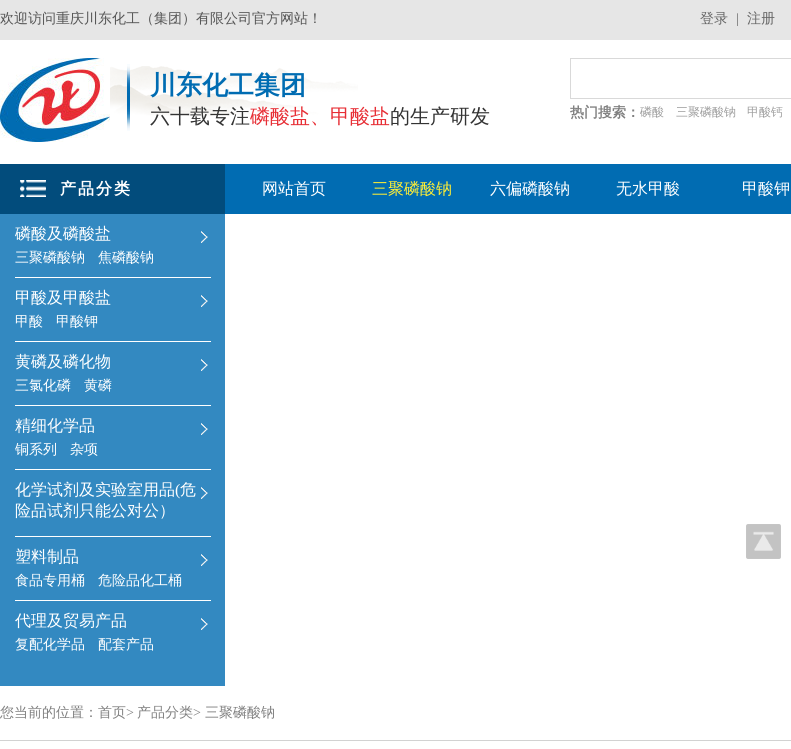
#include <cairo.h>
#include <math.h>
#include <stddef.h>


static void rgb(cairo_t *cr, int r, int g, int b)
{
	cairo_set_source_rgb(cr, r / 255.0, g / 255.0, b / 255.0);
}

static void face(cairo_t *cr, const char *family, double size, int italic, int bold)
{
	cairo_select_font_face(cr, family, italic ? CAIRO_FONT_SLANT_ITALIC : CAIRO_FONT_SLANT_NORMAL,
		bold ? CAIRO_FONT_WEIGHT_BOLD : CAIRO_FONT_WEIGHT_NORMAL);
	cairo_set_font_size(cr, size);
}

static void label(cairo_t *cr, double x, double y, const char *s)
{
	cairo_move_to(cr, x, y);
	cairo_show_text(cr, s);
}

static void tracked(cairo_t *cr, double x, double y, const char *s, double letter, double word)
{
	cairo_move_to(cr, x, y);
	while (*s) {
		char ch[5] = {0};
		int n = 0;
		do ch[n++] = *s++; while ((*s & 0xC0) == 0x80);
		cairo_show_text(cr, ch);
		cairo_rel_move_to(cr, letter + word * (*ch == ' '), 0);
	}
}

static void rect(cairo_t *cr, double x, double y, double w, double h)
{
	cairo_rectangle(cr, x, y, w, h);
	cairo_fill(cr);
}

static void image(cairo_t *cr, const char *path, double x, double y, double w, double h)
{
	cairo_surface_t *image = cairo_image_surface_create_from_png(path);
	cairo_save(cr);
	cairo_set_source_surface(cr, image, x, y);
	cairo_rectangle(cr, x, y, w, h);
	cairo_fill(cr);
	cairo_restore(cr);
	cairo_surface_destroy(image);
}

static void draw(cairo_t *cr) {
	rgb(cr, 255, 255, 255);
	cairo_paint(cr);
	rgb(cr, 230, 230, 230);
	rect(cr, 0, 0, 791, 40);
	face(cr, "WenQuanYi Zen Hei Medium", 14, 0, 0);
	rgb(cr, 85, 85, 85);
	label(cr, 0, 23, "欢迎访问重庆川东化工（集团）有限公司官方网站！");
	rgb(cr, 102, 102, 102);
	label(cr, 700, 23, "登录");
	face(cr, "Liberation Serif", 14, 0, 0);
	label(cr, 736, 23, "|");
	face(cr, "WenQuanYi Zen Hei Medium", 14, 0, 0);
	label(cr, 747, 23, "注册");
	image(cr, "image0.png", 110, 66, 248, 50);
	image(cr, "image1.png", 127, 64, 3, 67);
	image(cr, "image2.png", 0, 58, 110, 84);
	face(cr, "WenQuanYi Zen Hei", 26, 0, 1);
	rgb(cr, 0, 108, 178);
	label(cr, 150, 94, "川东化工集团");
	face(cr, "WenQuanYi Zen Hei Medium", 20, 0, 0);
	rgb(cr, 51, 51, 51);
	label(cr, 150, 123, "六十载专注");
	rgb(cr, 231, 46, 53);
	label(cr, 250, 123, "磷酸盐、甲酸盐");
	rgb(cr, 51, 51, 51);
	label(cr, 390, 123, "的生产研发");
	cairo_rectangle(cr, 570.5, 58.5, 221, 40);
	rgb(cr, 217, 217, 217);
	cairo_set_line_width(cr, 1);
	cairo_stroke(cr);
	face(cr, "WenQuanYi Zen Hei", 14, 0, 1);
	rgb(cr, 128, 128, 128);
	label(cr, 570, 117, "热门搜索：");
	face(cr, "WenQuanYi Zen Hei Medium", 12, 0, 0);
	rgb(cr, 158, 158, 158);
	label(cr, 640, 116, "磷酸");
	label(cr, 676, 116, "三聚磷酸钠");
	label(cr, 747, 116, "甲酸钙");
	rgb(cr, 1, 108, 178);
	rect(cr, 225, 164, 566, 50);
	rgb(cr, 2, 76, 124);
	rect(cr, 0, 164, 225, 50);
	image(cr, "image3.png", 20, 180, 26, 17);
	face(cr, "WenQuanYi Zen Hei", 16, 0, 1);
	rgb(cr, 255, 255, 255);
	tracked(cr, 60, 194, "产品分类", 2, 0);
	rgb(cr, 51, 137, 193);
	rect(cr, 0, 214, 225, 472);
	image(cr, "image4.png", 201, 231, 7, 12);
	rgb(cr, 255, 255, 255);
	rect(cr, 15, 277, 196, 1);
	face(cr, "WenQuanYi Zen Hei Medium", 16, 0, 0);
	label(cr, 15, 239, "磷酸及磷酸盐");
	face(cr, "WenQuanYi Zen Hei Medium", 14, 0, 0);
	label(cr, 15, 262, "三聚磷酸钠");
	label(cr, 98, 262, "焦磷酸钠");
	image(cr, "image4.png", 201, 295, 7, 12);
	rect(cr, 15, 341, 196, 1);
	face(cr, "WenQuanYi Zen Hei Medium", 16, 0, 0);
	label(cr, 15, 303, "甲酸及甲酸盐");
	face(cr, "WenQuanYi Zen Hei Medium", 14, 0, 0);
	label(cr, 15, 326, "甲酸");
	label(cr, 56, 326, "甲酸钾");
	image(cr, "image4.png", 201, 359, 7, 12);
	rect(cr, 15, 405, 196, 1);
	face(cr, "WenQuanYi Zen Hei Medium", 16, 0, 0);
	label(cr, 15, 367, "黄磷及磷化物");
	face(cr, "WenQuanYi Zen Hei Medium", 14, 0, 0);
	label(cr, 15, 390, "三氯化磷");
	label(cr, 84, 390, "黄磷");
	image(cr, "image4.png", 201, 423, 7, 12);
	rect(cr, 15, 469, 196, 1);
	face(cr, "WenQuanYi Zen Hei Medium", 16, 0, 0);
	label(cr, 15, 431, "精细化学品");
	face(cr, "WenQuanYi Zen Hei Medium", 14, 0, 0);
	label(cr, 15, 454, "铜系列");
	label(cr, 70, 454, "杂项");
	image(cr, "image4.png", 201, 487, 7, 12);
	rect(cr, 15, 536, 196, 1);
	face(cr, "WenQuanYi Zen Hei Medium", 16, 0, 0);
	label(cr, 15, 495, "化学试剂及实验室用品");
	face(cr, "Liberation Serif", 16, 0, 0);
	label(cr, 175, 495, "(");
	face(cr, "WenQuanYi Zen Hei Medium", 16, 0, 0);
	label(cr, 180, 495, "危");
	label(cr, 15, 516, "险品试剂只能公对公）");
	image(cr, "image4.png", 201, 554, 7, 12);
	rect(cr, 15, 600, 196, 1);
	label(cr, 15, 562, "塑料制品");
	face(cr, "WenQuanYi Zen Hei Medium", 14, 0, 0);
	label(cr, 15, 585, "食品专用桶");
	label(cr, 98, 585, "危险品化工桶");
	image(cr, "image4.png", 201, 618, 7, 12);
	face(cr, "WenQuanYi Zen Hei Medium", 16, 0, 0);
	label(cr, 15, 626, "代理及贸易产品");
	face(cr, "WenQuanYi Zen Hei Medium", 14, 0, 0);
	label(cr, 15, 649, "复配化学品");
	label(cr, 98, 649, "配套产品");
	face(cr, "WenQuanYi Zen Hei Medium", 16, 0, 0);
	label(cr, 262, 194, "网站首页");
	rgb(cr, 255, 238, 53);
	label(cr, 372, 194, "三聚磷酸钠");
	rgb(cr, 255, 255, 255);
	label(cr, 490, 194, "六偏磷酸钠");
	label(cr, 616, 194, "无水甲酸");
	label(cr, 742, 194, "甲酸钾");
	image(cr, "image5.png", 746, 524, 35, 35);
	rgb(cr, 210, 210, 210);
	rect(cr, 0, 740, 791, 1);
	face(cr, "WenQuanYi Zen Hei Medium", 14, 0, 0);
	rgb(cr, 128, 128, 128);
	label(cr, 0, 717, "您当前的位置：首页");
	face(cr, "Liberation Serif", 14, 0, 0);
	label(cr, 126, 717, ">");
	face(cr, "WenQuanYi Zen Hei Medium", 14, 0, 0);
	label(cr, 137, 717, "产品分类");
	face(cr, "Liberation Serif", 14, 0, 0);
	label(cr, 193, 717, ">");
	face(cr, "WenQuanYi Zen Hei Medium", 14, 0, 0);
	label(cr, 205, 717, "三聚磷酸钠");
}

int main(void) {
	cairo_surface_t *surface = cairo_image_surface_create(CAIRO_FORMAT_RGB24, 791, 749);
	cairo_t *cr = cairo_create(surface);
	cairo_font_options_t *options = cairo_font_options_create();
	cairo_font_options_set_hint_metrics(options, CAIRO_HINT_METRICS_OFF);
	cairo_font_options_set_hint_style(options, CAIRO_HINT_STYLE_NONE);
	cairo_set_font_options(cr, options);
	cairo_set_miter_limit(cr, 4);
	draw(cr);
	cairo_surface_write_to_png(surface, "render.png");
	cairo_font_options_destroy(options);
	cairo_destroy(cr);
	cairo_surface_destroy(surface);
	return 0;
}
